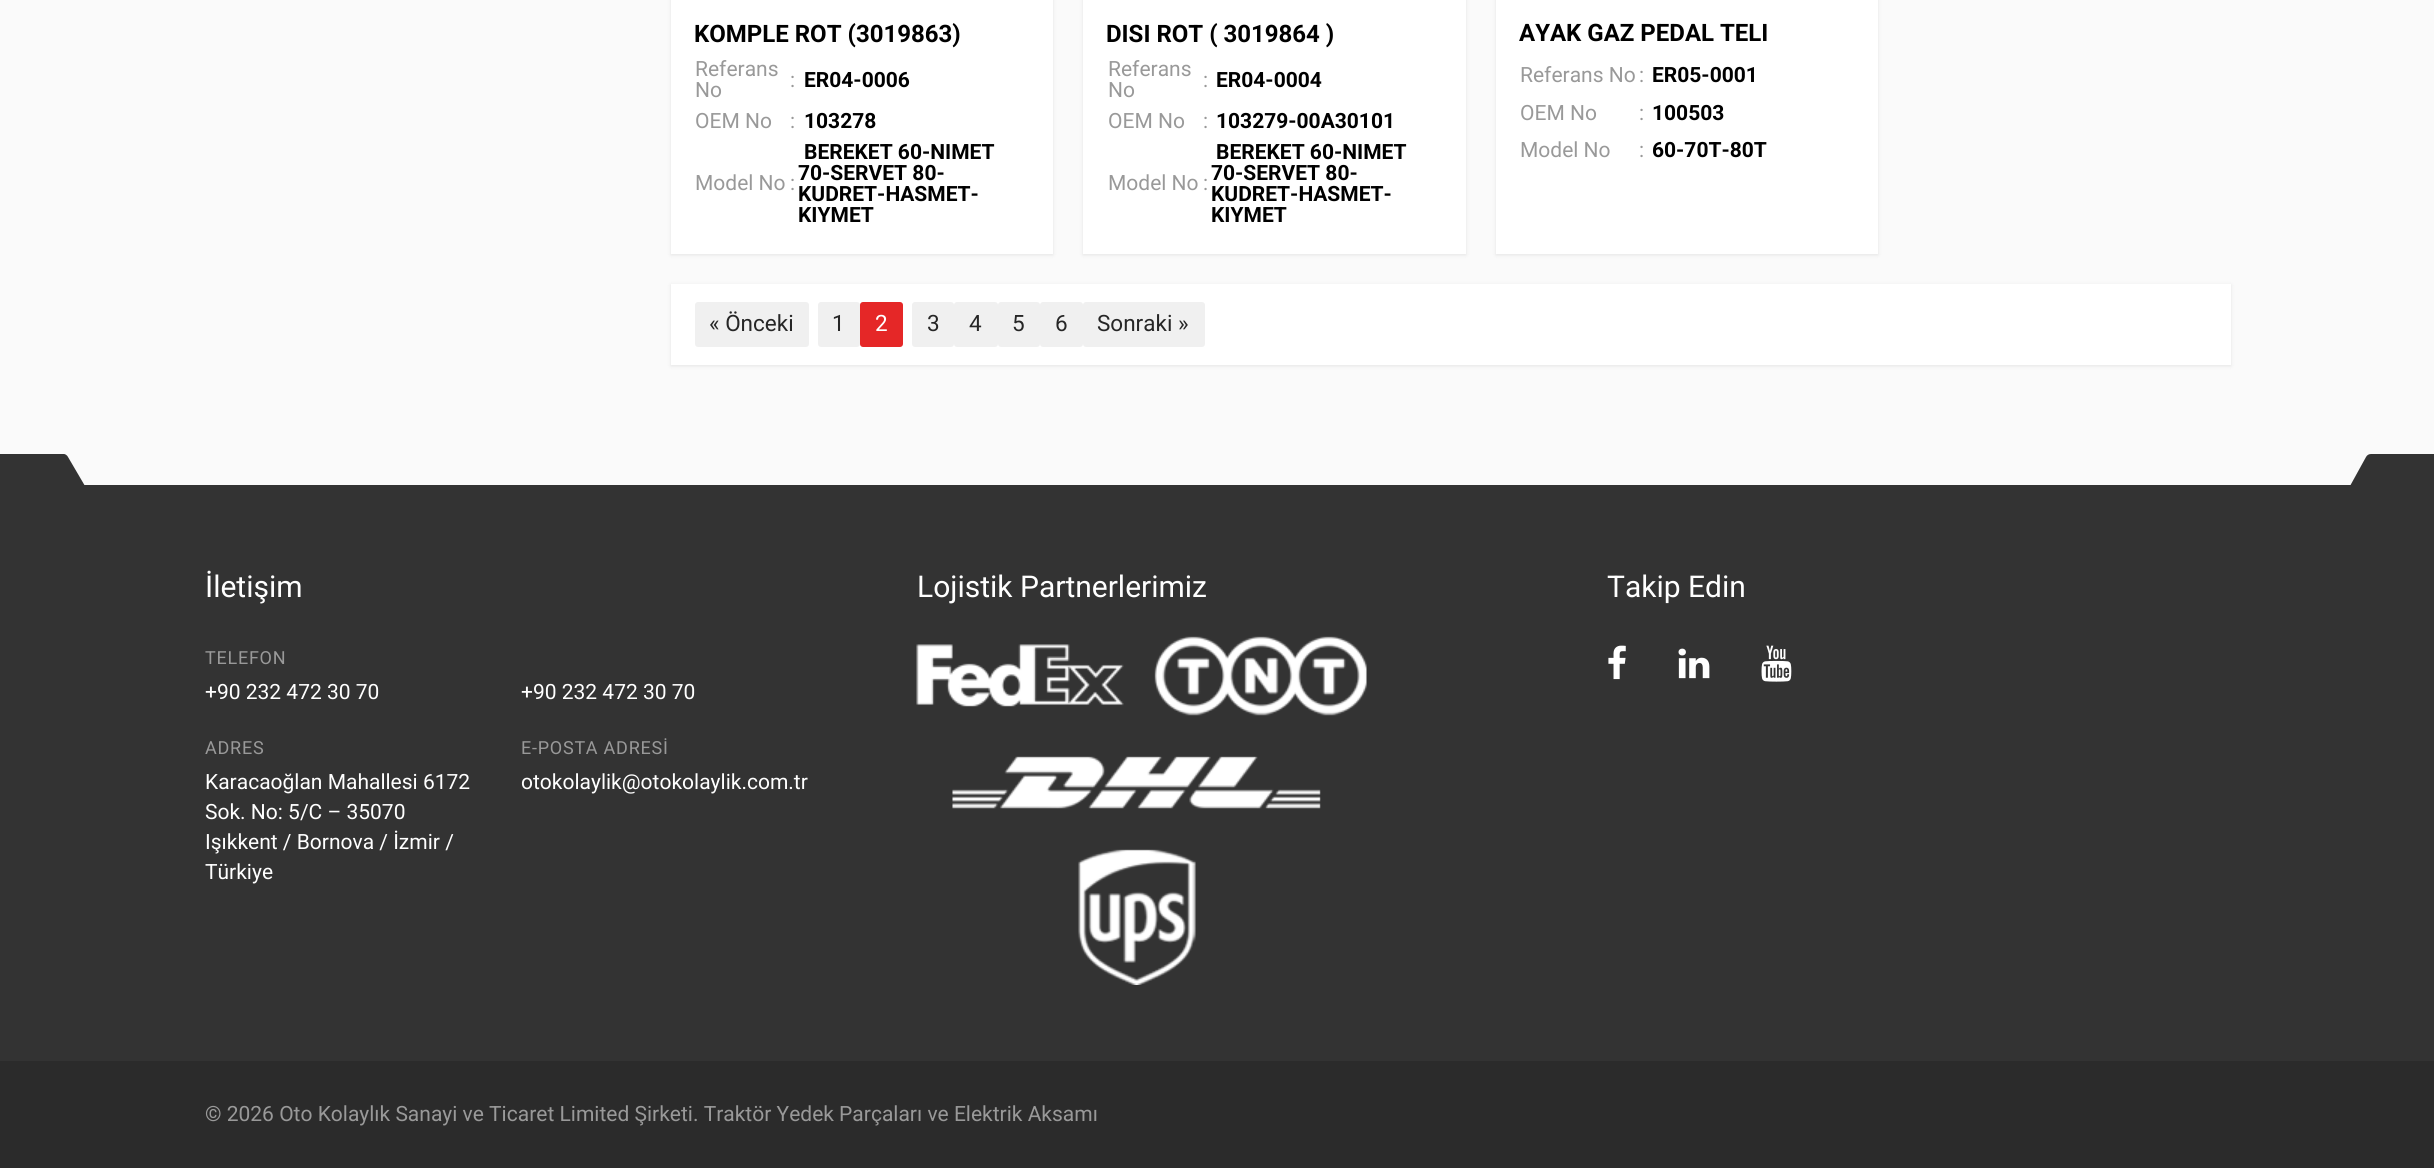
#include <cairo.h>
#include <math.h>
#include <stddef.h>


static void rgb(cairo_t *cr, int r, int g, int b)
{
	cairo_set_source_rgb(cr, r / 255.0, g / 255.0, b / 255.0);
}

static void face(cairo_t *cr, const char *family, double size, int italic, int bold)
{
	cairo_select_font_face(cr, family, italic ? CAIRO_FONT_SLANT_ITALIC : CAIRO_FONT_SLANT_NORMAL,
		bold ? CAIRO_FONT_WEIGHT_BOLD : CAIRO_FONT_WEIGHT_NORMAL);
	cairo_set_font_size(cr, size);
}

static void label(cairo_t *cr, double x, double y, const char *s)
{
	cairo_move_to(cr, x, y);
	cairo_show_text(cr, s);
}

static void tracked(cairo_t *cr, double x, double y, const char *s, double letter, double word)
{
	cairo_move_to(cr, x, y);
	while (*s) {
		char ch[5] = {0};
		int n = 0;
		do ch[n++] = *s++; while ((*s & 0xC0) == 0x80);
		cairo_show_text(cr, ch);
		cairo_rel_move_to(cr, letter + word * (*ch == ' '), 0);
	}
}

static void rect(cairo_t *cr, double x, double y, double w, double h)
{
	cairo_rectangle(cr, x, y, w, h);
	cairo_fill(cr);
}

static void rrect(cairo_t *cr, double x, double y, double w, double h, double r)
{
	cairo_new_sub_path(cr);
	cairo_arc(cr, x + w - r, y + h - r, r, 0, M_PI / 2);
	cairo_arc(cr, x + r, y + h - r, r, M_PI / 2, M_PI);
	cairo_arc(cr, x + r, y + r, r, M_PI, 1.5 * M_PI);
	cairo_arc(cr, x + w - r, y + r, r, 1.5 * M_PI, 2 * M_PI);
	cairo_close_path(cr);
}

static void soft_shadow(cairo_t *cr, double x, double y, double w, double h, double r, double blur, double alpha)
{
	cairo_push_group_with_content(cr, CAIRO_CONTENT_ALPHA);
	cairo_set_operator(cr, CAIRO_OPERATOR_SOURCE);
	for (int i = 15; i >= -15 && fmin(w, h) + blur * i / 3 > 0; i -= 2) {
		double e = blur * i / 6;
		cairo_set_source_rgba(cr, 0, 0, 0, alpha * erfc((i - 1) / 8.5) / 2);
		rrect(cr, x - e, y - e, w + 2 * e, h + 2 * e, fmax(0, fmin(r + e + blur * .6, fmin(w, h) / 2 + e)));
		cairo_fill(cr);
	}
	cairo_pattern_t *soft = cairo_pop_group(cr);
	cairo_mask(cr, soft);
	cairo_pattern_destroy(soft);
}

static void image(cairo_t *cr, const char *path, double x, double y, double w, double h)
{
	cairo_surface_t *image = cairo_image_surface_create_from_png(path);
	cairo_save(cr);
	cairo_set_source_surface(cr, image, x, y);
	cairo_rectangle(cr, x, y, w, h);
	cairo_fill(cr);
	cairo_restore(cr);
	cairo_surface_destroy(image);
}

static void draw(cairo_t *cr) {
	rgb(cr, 250, 250, 250);
	cairo_paint(cr);
	rgb(cr, 0, 0, 0);
	soft_shadow(cr, 671, -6, 382, 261, 0, 2, 0.09);
	rgb(cr, 255, 255, 255);
	rect(cr, 671, 0, 382, 254);
	face(cr, "Roboto", 24, 0, 1);
	rgb(cr, 0, 0, 0);
	label(cr, 694, 42, "KOMPLE ROT (3019863)");
	face(cr, "Roboto", 21, 0, 0);
	rgb(cr, 153, 153, 153);
	label(cr, 695, 76, "Referans");
	label(cr, 695, 97, "No");
	label(cr, 790, 87, ":");
	face(cr, "Roboto", 21, 0, 1);
	rgb(cr, 0, 0, 0);
	label(cr, 804, 87, "ER04-0006");
	face(cr, "Roboto", 21, 0, 0);
	rgb(cr, 153, 153, 153);
	label(cr, 695, 128, "OEM No");
	label(cr, 790, 128, ":");
	face(cr, "Roboto", 21, 0, 1);
	rgb(cr, 0, 0, 0);
	label(cr, 804, 128, "103278");
	face(cr, "Roboto", 21, 0, 0);
	rgb(cr, 153, 153, 153);
	label(cr, 695, 190, "Model No");
	label(cr, 790, 190, ":");
	face(cr, "Roboto", 21, 0, 1);
	rgb(cr, 0, 0, 0);
	label(cr, 804, 159, "BEREKET 60-NIMET");
	label(cr, 798, 180, "70-SERVET 80-");
	label(cr, 798, 201, "KUDRET-HASMET-");
	label(cr, 798, 222, "KIYMET");
	rgb(cr, 0, 0, 0);
	soft_shadow(cr, 1083, -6, 383, 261, 0, 2, 0.09);
	rgb(cr, 255, 255, 255);
	rect(cr, 1083, 0, 383, 254);
	face(cr, "Roboto", 24, 0, 1);
	rgb(cr, 0, 0, 0);
	label(cr, 1106, 42, "DISI ROT ( 3019864 )");
	face(cr, "Roboto", 21, 0, 0);
	rgb(cr, 153, 153, 153);
	label(cr, 1108, 76, "Referans");
	label(cr, 1108, 97, "No");
	label(cr, 1203, 87, ":");
	face(cr, "Roboto", 21, 0, 1);
	rgb(cr, 0, 0, 0);
	label(cr, 1216, 87, "ER04-0004");
	face(cr, "Roboto", 21, 0, 0);
	rgb(cr, 153, 153, 153);
	label(cr, 1108, 128, "OEM No");
	label(cr, 1203, 128, ":");
	face(cr, "Roboto", 21, 0, 1);
	rgb(cr, 0, 0, 0);
	label(cr, 1216, 128, "103279-00A30101");
	face(cr, "Roboto", 21, 0, 0);
	rgb(cr, 153, 153, 153);
	label(cr, 1108, 190, "Model No");
	label(cr, 1203, 190, ":");
	face(cr, "Roboto", 21, 0, 1);
	rgb(cr, 0, 0, 0);
	label(cr, 1216, 159, "BEREKET 60-NIMET");
	label(cr, 1211, 180, "70-SERVET 80-");
	label(cr, 1211, 201, "KUDRET-HASMET-");
	label(cr, 1211, 222, "KIYMET");
	rgb(cr, 0, 0, 0);
	soft_shadow(cr, 1496, -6, 382, 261, 0, 2, 0.09);
	rgb(cr, 255, 255, 255);
	rect(cr, 1496, 0, 382, 254);
	face(cr, "Roboto", 24, 0, 1);
	rgb(cr, 0, 0, 0);
	label(cr, 1519, 41, "AYAK GAZ PEDAL TELI");
	face(cr, "Roboto", 21, 0, 0);
	rgb(cr, 153, 153, 153);
	label(cr, 1520, 82, "Referans No");
	label(cr, 1639, 82, ":");
	face(cr, "Roboto", 21, 0, 1);
	rgb(cr, 0, 0, 0);
	label(cr, 1652, 82, "ER05-0001");
	face(cr, "Roboto", 21, 0, 0);
	rgb(cr, 153, 153, 153);
	label(cr, 1520, 120, "OEM No");
	label(cr, 1639, 120, ":");
	face(cr, "Roboto", 21, 0, 1);
	rgb(cr, 0, 0, 0);
	label(cr, 1652, 120, "100503");
	face(cr, "Roboto", 21, 0, 0);
	rgb(cr, 153, 153, 153);
	label(cr, 1520, 157, "Model No");
	label(cr, 1639, 157, ":");
	face(cr, "Roboto", 21, 0, 1);
	rgb(cr, 0, 0, 0);
	label(cr, 1652, 157, "60-70T-80T");
	rgb(cr, 0, 0, 0);
	soft_shadow(cr, 671, 285, 1560, 81, 0, 2, 0.09);
	rgb(cr, 255, 255, 255);
	rect(cr, 671, 284, 1560, 81);
	rgb(cr, 240, 240, 240);
	rrect(cr, 695, 302, 114, 45, 3);
	cairo_fill(cr);
	face(cr, "Roboto", 22.5, 0, 0);
	rgb(cr, 38, 38, 38);
	label(cr, 709, 331, "« Önceki");
	rgb(cr, 240, 240, 240);
	rrect(cr, 818, 302, 42, 45, 3);
	cairo_fill(cr);
	rgb(cr, 38, 38, 38);
	label(cr, 832, 331, "1");
	rgb(cr, 229, 39, 39);
	rrect(cr, 860, 302, 43, 45, 3);
	cairo_fill(cr);
	rgb(cr, 255, 255, 255);
	label(cr, 875, 331, "2");
	rgb(cr, 240, 240, 240);
	rrect(cr, 912, 302, 42, 45, 3);
	cairo_fill(cr);
	rgb(cr, 38, 38, 38);
	label(cr, 927, 331, "3");
	rgb(cr, 240, 240, 240);
	rrect(cr, 954, 302, 44, 45, 3);
	cairo_fill(cr);
	rgb(cr, 38, 38, 38);
	label(cr, 969, 331, "4");
	rgb(cr, 240, 240, 240);
	rrect(cr, 998, 302, 42, 45, 3);
	cairo_fill(cr);
	rgb(cr, 38, 38, 38);
	label(cr, 1012, 331, "5");
	rgb(cr, 240, 240, 240);
	rrect(cr, 1040, 302, 43, 45, 3);
	cairo_fill(cr);
	rgb(cr, 38, 38, 38);
	label(cr, 1055, 331, "6");
	rgb(cr, 240, 240, 240);
	rrect(cr, 1083, 302, 122, 45, 3);
	cairo_fill(cr);
	rgb(cr, 38, 38, 38);
	label(cr, 1097, 331, "Sonraki »");
	rgb(cr, 51, 51, 51);
	rect(cr, 0, 485, 2434, 576);
	cairo_new_path(cr);
	cairo_move_to(cr, -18, 454);
	cairo_line_to(cr, 64, 454);
	cairo_curve_to(cr, 65, 454, 67, 455, 68, 457);
	cairo_line_to(cr, 85, 486);
	cairo_line_to(cr, 0, 486);
	cairo_close_path(cr);
	cairo_fill(cr);
	cairo_new_path(cr);
	cairo_move_to(cr, 2371, 454);
	cairo_line_to(cr, 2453, 454);
	cairo_line_to(cr, 2434, 486);
	cairo_line_to(cr, 2350, 486);
	cairo_line_to(cr, 2366, 457);
	cairo_curve_to(cr, 2367, 455, 2369, 454, 2371, 454);
	cairo_close_path(cr);
	cairo_fill(cr);
	face(cr, "Roboto", 30, 0, 0);
	rgb(cr, 255, 255, 255);
	label(cr, 205, 597, "İletişim");
	face(cr, "Roboto", 18, 0, 0);
	rgb(cr, 153, 153, 153);
	tracked(cr, 205, 664, "TELEFON", 0.75, 0);
	face(cr, "Roboto", 21, 0, 0);
	rgb(cr, 255, 255, 255);
	label(cr, 205, 699, "+90 232 472 30 70");
	label(cr, 521, 699, "+90 232 472 30 70");
	face(cr, "Roboto", 18, 0, 0);
	rgb(cr, 153, 153, 153);
	tracked(cr, 205, 754, "ADRES", 0.75, 0);
	face(cr, "Roboto", 21, 0, 0);
	rgb(cr, 255, 255, 255);
	label(cr, 205, 789, "Karacaoğlan Mahallesi 6172");
	label(cr, 205, 819, "Sok. No: 5/C – 35070");
	label(cr, 205, 849, "Işıkkent / Bornova / İzmir /");
	label(cr, 205, 879, "Türkiye");
	face(cr, "Roboto", 18, 0, 0);
	rgb(cr, 153, 153, 153);
	tracked(cr, 521, 754, "E-POSTA ADRESİ", 0.75, 0);
	face(cr, "Roboto", 21, 0, 0);
	rgb(cr, 255, 255, 255);
	label(cr, 521, 789, "otokolaylik@otokolaylik.com.tr");
	face(cr, "Roboto", 30, 0, 0);
	label(cr, 917, 597, "Lojistik Partnerlerimiz");
	image(cr, "image0.png", 916, 636, 451, 349);
	label(cr, 1607, 597, "Takip Edin");
	image(cr, "image1.png", 1608, 645, 18, 35);
	image(cr, "image2.png", 1678, 648, 32, 31);
	image(cr, "image3.png", 1761, 645, 31, 37);
	rgb(cr, 43, 43, 43);
	rect(cr, 0, 1061, 2434, 107);
	face(cr, "Roboto", 21, 0, 0);
	rgb(cr, 153, 153, 153);
	label(cr, 205, 1121, "© 2026 Oto Kolaylık Sanayi ve Ticaret Limited Şirketi. Traktör Yedek Parçaları ve Elektrik Aksamı");
}

int main(void) {
	cairo_surface_t *surface = cairo_image_surface_create(CAIRO_FORMAT_RGB24, 2434, 1168);
	cairo_t *cr = cairo_create(surface);
	cairo_font_options_t *options = cairo_font_options_create();
	cairo_font_options_set_hint_metrics(options, CAIRO_HINT_METRICS_OFF);
	cairo_font_options_set_hint_style(options, CAIRO_HINT_STYLE_NONE);
	cairo_set_font_options(cr, options);
	cairo_set_miter_limit(cr, 4);
	draw(cr);
	cairo_surface_write_to_png(surface, "render.png");
	cairo_font_options_destroy(options);
	cairo_destroy(cr);
	cairo_surface_destroy(surface);
	return 0;
}
